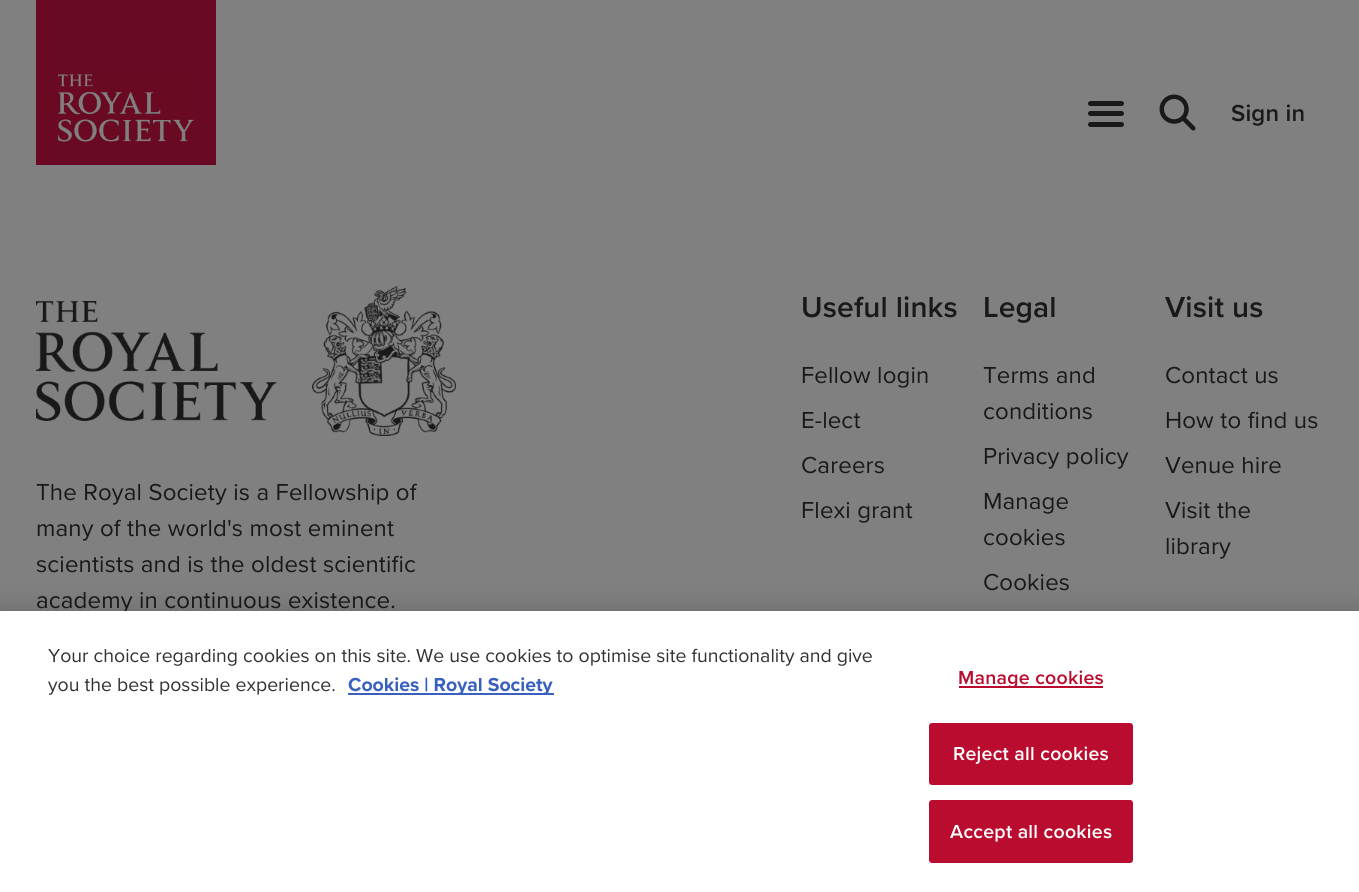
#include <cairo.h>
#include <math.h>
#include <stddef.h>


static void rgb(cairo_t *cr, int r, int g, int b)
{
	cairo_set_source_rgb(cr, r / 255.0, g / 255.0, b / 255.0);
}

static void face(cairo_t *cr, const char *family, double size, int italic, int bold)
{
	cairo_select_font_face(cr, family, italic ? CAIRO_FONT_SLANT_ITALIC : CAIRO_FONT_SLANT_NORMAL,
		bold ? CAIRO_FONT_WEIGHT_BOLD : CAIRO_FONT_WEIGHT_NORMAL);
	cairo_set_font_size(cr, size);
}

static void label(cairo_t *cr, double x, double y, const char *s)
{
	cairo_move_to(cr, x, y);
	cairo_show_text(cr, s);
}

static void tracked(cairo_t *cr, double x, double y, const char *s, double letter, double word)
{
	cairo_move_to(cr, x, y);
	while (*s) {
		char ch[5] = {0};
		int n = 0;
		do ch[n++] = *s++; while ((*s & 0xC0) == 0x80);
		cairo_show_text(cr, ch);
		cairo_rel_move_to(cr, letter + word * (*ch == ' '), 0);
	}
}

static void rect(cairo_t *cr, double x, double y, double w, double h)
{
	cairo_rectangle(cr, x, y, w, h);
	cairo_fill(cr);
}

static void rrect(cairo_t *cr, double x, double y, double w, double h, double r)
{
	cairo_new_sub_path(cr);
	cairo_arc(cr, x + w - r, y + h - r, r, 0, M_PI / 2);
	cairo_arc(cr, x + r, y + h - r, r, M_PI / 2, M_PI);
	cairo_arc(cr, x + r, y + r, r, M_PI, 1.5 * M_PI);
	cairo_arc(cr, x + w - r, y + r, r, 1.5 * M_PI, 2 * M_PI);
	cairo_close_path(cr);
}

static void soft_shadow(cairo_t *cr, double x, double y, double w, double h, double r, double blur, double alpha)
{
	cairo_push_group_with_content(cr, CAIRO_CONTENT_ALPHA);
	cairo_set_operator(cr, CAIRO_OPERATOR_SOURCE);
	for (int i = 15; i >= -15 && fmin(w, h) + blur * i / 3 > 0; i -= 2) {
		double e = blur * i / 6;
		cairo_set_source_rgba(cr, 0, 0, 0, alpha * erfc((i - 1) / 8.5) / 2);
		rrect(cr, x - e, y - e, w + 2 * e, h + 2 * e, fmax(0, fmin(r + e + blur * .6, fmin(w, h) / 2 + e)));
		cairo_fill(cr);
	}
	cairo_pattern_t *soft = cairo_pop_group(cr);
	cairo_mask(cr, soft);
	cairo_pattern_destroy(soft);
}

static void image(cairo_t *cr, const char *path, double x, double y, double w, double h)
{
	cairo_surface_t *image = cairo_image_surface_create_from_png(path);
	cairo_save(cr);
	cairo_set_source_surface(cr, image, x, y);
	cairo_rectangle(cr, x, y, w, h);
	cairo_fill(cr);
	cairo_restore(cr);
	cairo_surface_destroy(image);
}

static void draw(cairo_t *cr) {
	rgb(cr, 128, 128, 128);
	cairo_paint(cr);
	rgb(cr, 106, 9, 35);
	rect(cr, 36, 0, 180, 165);
	image(cr, "image0.png", 58, 74, 136, 68);
	rgb(cr, 26, 25, 25);
	rrect(cr, 1088, 111, 36, 5, 2.5);
	cairo_fill(cr);
	rrect(cr, 1088, 101, 36, 5, 2.5);
	cairo_fill(cr);
	rrect(cr, 1088, 122, 36, 5, 2.5);
	cairo_fill(cr);
	image(cr, "image1.png", 1159, 94, 37, 37);
	face(cr, "Proxima Nova SemiBold", 24, 0, 0);
	tracked(cr, 1231, 121, "Sign in", 0.15, 0);
	image(cr, "image2.png", 36, 286, 420, 150);
	face(cr, "Proxima Nova", 24, 0, 0);
	tracked(cr, 36, 500, "The Royal Society is a Fellowship of", 0.15, 0);
	tracked(cr, 36, 536, "many of the world's most eminent", 0.15, 0);
	tracked(cr, 36, 572, "scientists and is the oldest scientific", 0.15, 0);
	tracked(cr, 36, 608, "academy in continuous existence.", 0.15, 0);
	face(cr, "Proxima Nova SemiBold", 30, 0, 0);
	tracked(cr, 801, 317, "Useful links", 0.15, 0);
	face(cr, "Proxima Nova", 24, 0, 0);
	tracked(cr, 801, 383, "Fellow login", 0.15, 0);
	tracked(cr, 801, 428, "E-lect", 0.15, 0);
	tracked(cr, 801, 473, "Careers", 0.15, 0);
	tracked(cr, 801, 518, "Flexi grant", 0.15, 0);
	face(cr, "Proxima Nova SemiBold", 30, 0, 0);
	tracked(cr, 983, 317, "Legal", 0.15, 0);
	face(cr, "Proxima Nova", 24, 0, 0);
	tracked(cr, 983, 383, "Terms and", 0.15, 0);
	tracked(cr, 983, 419, "conditions", 0.15, 0);
	tracked(cr, 983, 464, "Privacy policy", 0.15, 0);
	tracked(cr, 983, 509, "Manage", 0.15, 0);
	tracked(cr, 983, 545, "cookies", 0.15, 0);
	tracked(cr, 983, 590, "Cookies", 0.15, 0);
	face(cr, "Proxima Nova SemiBold", 30, 0, 0);
	tracked(cr, 1165, 317, "Visit us", 0.15, 0);
	face(cr, "Proxima Nova", 24, 0, 0);
	tracked(cr, 1165, 383, "Contact us", 0.15, 0);
	tracked(cr, 1165, 428, "How to find us", 0.15, 0);
	tracked(cr, 1165, 473, "Venue hire", 0.15, 0);
	tracked(cr, 1165, 518, "Visit the", 0.15, 0);
	tracked(cr, 1165, 554, "library", 0.15, 0);
	rgb(cr, 0, 0, 0);
	soft_shadow(cr, 0, 611, 1359, 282, 0, 13.5, 0.2);
	rgb(cr, 255, 255, 255);
	rect(cr, 0, 611, 1359, 281);
	face(cr, "Proxima Nova", 19.5, 0, 0);
	rgb(cr, 51, 49, 50);
	label(cr, 48, 662, "Your choice regarding cookies on this site. We use cookies to optimise site functionality and give");
	label(cr, 48, 691, "you the best possible experience.");
	rgb(cr, 56, 96, 190);
	rect(cr, 348, 693, 206, 2);
	face(cr, "Proxima Nova", 19.5, 0, 1);
	label(cr, 348, 691, "Cookies | Royal Society");
	rgb(cr, 186, 12, 47);
	rect(cr, 959, 686, 144, 2);
	face(cr, "Proxima Nova SemiBold", 19.5, 0, 0);
	tracked(cr, 958, 684, "Manage cookies", 0.25, 0);
	rrect(cr, 930, 724, 202, 60, 2);
	cairo_fill_preserve(cr);
	cairo_stroke(cr);
	rgb(cr, 255, 255, 255);
	tracked(cr, 953, 760, "Reject all cookies", 0.25, 0);
	rgb(cr, 186, 12, 47);
	rrect(cr, 930, 801, 202, 61, 2);
	cairo_fill_preserve(cr);
	cairo_stroke(cr);
	rgb(cr, 255, 255, 255);
	tracked(cr, 950, 838, "Accept all cookies", 0.25, 0);
}

int main(void) {
	cairo_surface_t *surface = cairo_image_surface_create(CAIRO_FORMAT_RGB24, 1359, 892);
	cairo_t *cr = cairo_create(surface);
	cairo_font_options_t *options = cairo_font_options_create();
	cairo_font_options_set_hint_metrics(options, CAIRO_HINT_METRICS_OFF);
	cairo_font_options_set_hint_style(options, CAIRO_HINT_STYLE_NONE);
	cairo_set_font_options(cr, options);
	cairo_set_miter_limit(cr, 4);
	draw(cr);
	cairo_surface_write_to_png(surface, "render.png");
	cairo_font_options_destroy(options);
	cairo_destroy(cr);
	cairo_surface_destroy(surface);
	return 0;
}
